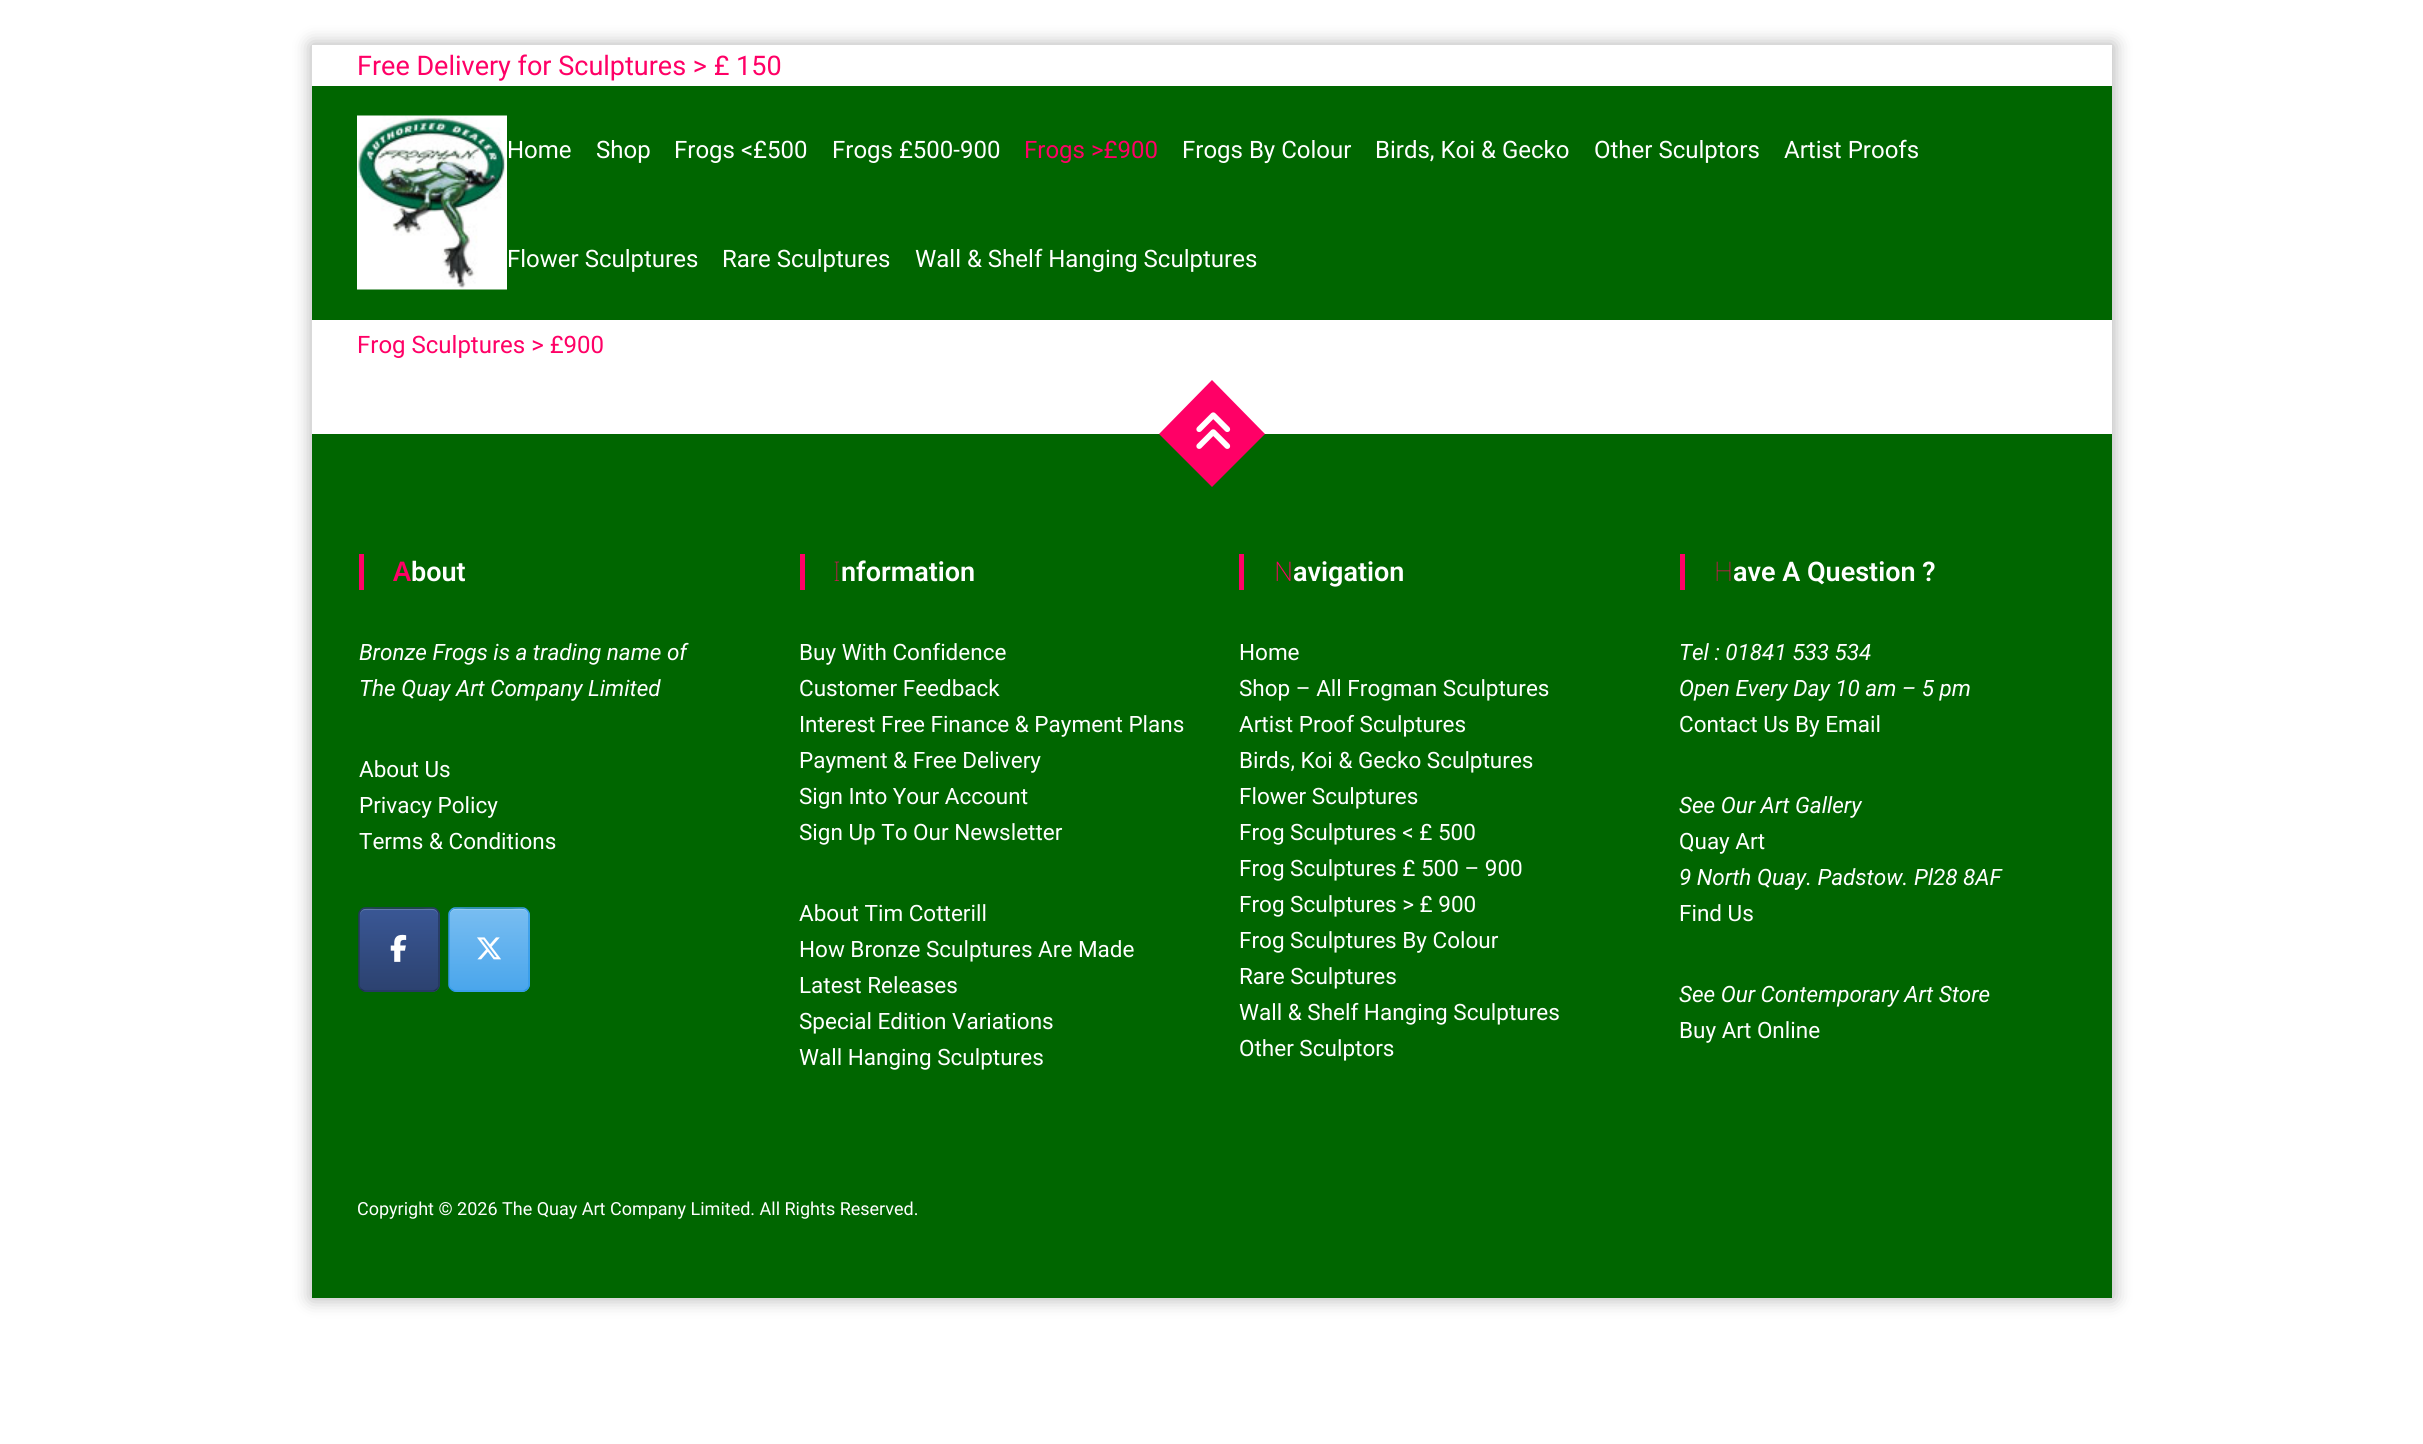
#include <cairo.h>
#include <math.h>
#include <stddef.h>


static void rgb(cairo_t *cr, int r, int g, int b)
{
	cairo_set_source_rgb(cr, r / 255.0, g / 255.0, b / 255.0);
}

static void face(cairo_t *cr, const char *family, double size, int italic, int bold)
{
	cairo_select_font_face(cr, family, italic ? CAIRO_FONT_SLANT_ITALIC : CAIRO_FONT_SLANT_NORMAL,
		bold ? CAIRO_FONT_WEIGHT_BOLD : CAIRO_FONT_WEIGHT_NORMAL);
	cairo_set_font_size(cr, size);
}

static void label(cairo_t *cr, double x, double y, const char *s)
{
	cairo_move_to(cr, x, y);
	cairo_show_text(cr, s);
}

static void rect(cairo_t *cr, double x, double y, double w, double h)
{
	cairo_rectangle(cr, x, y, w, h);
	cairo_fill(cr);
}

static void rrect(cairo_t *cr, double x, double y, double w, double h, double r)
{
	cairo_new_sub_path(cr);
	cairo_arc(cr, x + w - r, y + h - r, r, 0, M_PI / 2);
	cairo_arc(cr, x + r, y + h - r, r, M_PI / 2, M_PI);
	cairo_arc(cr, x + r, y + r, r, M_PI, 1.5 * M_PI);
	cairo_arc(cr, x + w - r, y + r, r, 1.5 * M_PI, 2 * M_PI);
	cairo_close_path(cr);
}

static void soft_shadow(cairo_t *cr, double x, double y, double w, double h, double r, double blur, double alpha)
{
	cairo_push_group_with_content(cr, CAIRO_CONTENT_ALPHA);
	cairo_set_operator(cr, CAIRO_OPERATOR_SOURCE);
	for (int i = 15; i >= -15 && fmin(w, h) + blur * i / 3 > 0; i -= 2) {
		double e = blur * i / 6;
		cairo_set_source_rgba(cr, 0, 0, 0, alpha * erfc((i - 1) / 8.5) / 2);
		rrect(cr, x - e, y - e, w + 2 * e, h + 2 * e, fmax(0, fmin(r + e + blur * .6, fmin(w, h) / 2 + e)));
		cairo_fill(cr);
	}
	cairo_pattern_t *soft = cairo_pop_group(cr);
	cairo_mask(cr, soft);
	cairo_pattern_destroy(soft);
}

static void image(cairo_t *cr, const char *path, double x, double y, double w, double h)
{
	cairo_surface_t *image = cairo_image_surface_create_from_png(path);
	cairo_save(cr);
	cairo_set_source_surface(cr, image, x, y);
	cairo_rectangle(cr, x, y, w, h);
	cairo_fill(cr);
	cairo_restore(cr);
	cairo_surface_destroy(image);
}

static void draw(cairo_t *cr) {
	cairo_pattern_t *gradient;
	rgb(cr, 255, 255, 255);
	cairo_paint(cr);
	rgb(cr, 0, 0, 0);
	soft_shadow(cr, 311, 44, 1803, 1255, 0, 9, 0.3);
	rgb(cr, 255, 255, 255);
	rect(cr, 312, 45, 1800, 389);
	face(cr, "Roboto", 27, 0, 0);
	rgb(cr, 255, 0, 102);
	label(cr, 357, 75, "Free Delivery for Sculptures > £ 150");
	rgb(cr, 0, 102, 0);
	rect(cr, 312, 86, 1800, 234);
	image(cr, "image0.png", 357, 115, 150, 175);
	face(cr, "Roboto", 24, 0, 0);
	rgb(cr, 255, 255, 255);
	label(cr, 507, 158, "Home");
	label(cr, 596, 158, "Shop");
	label(cr, 674, 158, "Frogs <£500");
	label(cr, 832, 158, "Frogs £500-900");
	rgb(cr, 255, 0, 102);
	label(cr, 1024, 158, "Frogs >£900");
	rgb(cr, 255, 255, 255);
	label(cr, 1182, 158, "Frogs By Colour");
	label(cr, 1375, 158, "Birds, Koi & Gecko");
	label(cr, 1594, 158, "Other Sculptors");
	label(cr, 1784, 158, "Artist Proofs");
	label(cr, 507, 267, "Flower Sculptures");
	label(cr, 722, 267, "Rare Sculptures");
	label(cr, 915, 267, "Wall & Shelf Hanging Sculptures");
	rgb(cr, 255, 0, 102);
	label(cr, 357, 353, "Frog Sculptures > £900");
	rgb(cr, 0, 102, 0);
	rect(cr, 312, 434, 1800, 864);
	rgb(cr, 255, 0, 102);
	cairo_new_path(cr);
	cairo_move_to(cr, 1212, 380);
	cairo_line_to(cr, 1265, 434);
	cairo_line_to(cr, 1212, 487);
	cairo_line_to(cr, 1159, 434);
	cairo_close_path(cr);
	cairo_fill(cr);
	image(cr, "image1.png", 1196, 412, 35, 37);
	rect(cr, 359, 554, 5, 36);
	face(cr, "Noto Sans SemiBold", 27, 0, 0);
	label(cr, 393, 581, "A");
	face(cr, "Roboto SemiBold", 27, 0, 0);
	rgb(cr, 255, 255, 255);
	label(cr, 411, 581, "bout");
	face(cr, "Roboto", 22.5, 1, 0);
	label(cr, 359, 660, "Bronze Frogs is a trading name of");
	label(cr, 359, 696, "The Quay Art Company Limited");
	face(cr, "Roboto", 22.5, 0, 0);
	label(cr, 359, 777, "About Us");
	label(cr, 359, 813, "Privacy Policy");
	label(cr, 359, 849, "Terms & Conditions");
	cairo_save(cr);
	rrect(cr, 359, 908, 81, 84, 8);
	cairo_clip(cr);
	gradient = cairo_pattern_create_linear(360, 990, 360, 909);
	cairo_pattern_add_color_stop_rgba(gradient, 0, 0.173, 0.259, 0.439, 1);
	cairo_pattern_add_color_stop_rgba(gradient, 1, 0.227, 0.341, 0.584, 1);
	cairo_set_source(cr, gradient);
	cairo_pattern_destroy(gradient);
	rect(cr, 359, 909, 81, 81);
	gradient = cairo_pattern_create_linear(360, 1071, 360, 990);
	cairo_pattern_add_color_stop_rgba(gradient, 0, 0.173, 0.259, 0.439, 1);
	cairo_pattern_add_color_stop_rgba(gradient, 1, 0.227, 0.341, 0.584, 1);
	cairo_set_source(cr, gradient);
	cairo_pattern_destroy(gradient);
	rect(cr, 359, 990, 81, 2);
	cairo_restore(cr);
	rgb(cr, 97, 121, 170);
	cairo_new_path(cr);
	cairo_move_to(cr, 365, 910);
	cairo_line_to(cr, 433, 910);
	cairo_curve_to(cr, 436, 910, 438, 913, 438, 916);
	cairo_curve_to(cr, 438, 906, 428, 909, 421, 909);
	cairo_line_to(cr, 377, 909);
	cairo_curve_to(cr, 370, 909, 360, 906, 360, 916);
	cairo_curve_to(cr, 360, 913, 362, 910, 365, 910);
	cairo_close_path(cr);
	cairo_fill(cr);
	cairo_new_path(cr);
	cairo_move_to(cr, 361, 910);
	cairo_curve_to(cr, 362, 909, 363.5, 908, 365, 908);
	cairo_line_to(cr, 433, 908);
	cairo_curve_to(cr, 434.5, 908, 436, 909, 437, 910);
	rgb(cr, 39, 59, 101);
	cairo_set_line_width(cr, 1.5);
	cairo_stroke(cr);
	cairo_new_path(cr);
	cairo_move_to(cr, 437, 910);
	cairo_curve_to(cr, 438, 911, 439, 912.5, 439, 914);
	cairo_line_to(cr, 439, 985);
	cairo_curve_to(cr, 439, 986.5, 438, 988, 437, 989);
	rgb(cr, 37, 55, 94);
	cairo_stroke(cr);
	cairo_new_path(cr);
	cairo_move_to(cr, 437, 989);
	cairo_curve_to(cr, 436, 990, 434.5, 991, 433, 991);
	cairo_line_to(cr, 365, 991);
	cairo_curve_to(cr, 363.5, 991, 362, 990, 361, 989);
	rgb(cr, 32, 48, 83);
	cairo_stroke(cr);
	cairo_new_path(cr);
	cairo_move_to(cr, 361, 989);
	cairo_curve_to(cr, 360, 988, 359, 986.5, 359, 985);
	cairo_line_to(cr, 359, 914);
	cairo_curve_to(cr, 359, 912.5, 360, 911, 361, 910);
	rgb(cr, 37, 55, 94);
	cairo_stroke(cr);
	image(cr, "image2.png", 390, 934, 17, 28);
	cairo_save(cr);
	rrect(cr, 449, 908, 81, 84, 8);
	cairo_clip(cr);
	gradient = cairo_pattern_create_linear(450, 990, 450, 909);
	cairo_pattern_add_color_stop_rgba(gradient, 0, 0.29, 0.651, 0.925, 1);
	cairo_pattern_add_color_stop_rgba(gradient, 1, 0.471, 0.741, 0.945, 1);
	cairo_set_source(cr, gradient);
	cairo_pattern_destroy(gradient);
	rect(cr, 449, 909, 81, 81);
	gradient = cairo_pattern_create_linear(450, 1071, 450, 990);
	cairo_pattern_add_color_stop_rgba(gradient, 0, 0.29, 0.651, 0.925, 1);
	cairo_pattern_add_color_stop_rgba(gradient, 1, 0.471, 0.741, 0.945, 1);
	cairo_set_source(cr, gradient);
	cairo_pattern_destroy(gradient);
	rect(cr, 449, 990, 81, 2);
	cairo_restore(cr);
	rgb(cr, 147, 202, 244);
	cairo_new_path(cr);
	cairo_move_to(cr, 455, 910);
	cairo_line_to(cr, 523, 910);
	cairo_curve_to(cr, 526, 910, 528, 913, 528, 916);
	cairo_curve_to(cr, 528, 906, 518, 909, 511, 909);
	cairo_line_to(cr, 467, 909);
	cairo_curve_to(cr, 460, 909, 450, 906, 450, 916);
	cairo_curve_to(cr, 450, 913, 452, 910, 455, 910);
	cairo_close_path(cr);
	cairo_fill(cr);
	cairo_new_path(cr);
	cairo_move_to(cr, 451, 910);
	cairo_curve_to(cr, 452, 909, 453.5, 908, 455, 908);
	cairo_line_to(cr, 523, 908);
	cairo_curve_to(cr, 524.5, 908, 526, 909, 527, 910);
	rgb(cr, 60, 160, 235);
	cairo_stroke(cr);
	cairo_new_path(cr);
	cairo_move_to(cr, 527, 910);
	cairo_curve_to(cr, 528, 911, 529, 912.5, 529, 914);
	cairo_line_to(cr, 529, 985);
	cairo_curve_to(cr, 529, 986.5, 528, 988, 527, 989);
	rgb(cr, 51, 155, 234);
	cairo_stroke(cr);
	cairo_new_path(cr);
	cairo_move_to(cr, 527, 989);
	cairo_curve_to(cr, 526, 990, 524.5, 991, 523, 991);
	cairo_line_to(cr, 455, 991);
	cairo_curve_to(cr, 453.5, 991, 452, 990, 451, 989);
	rgb(cr, 37, 148, 232);
	cairo_stroke(cr);
	cairo_new_path(cr);
	cairo_move_to(cr, 451, 989);
	cairo_curve_to(cr, 450, 988, 449, 986.5, 449, 985);
	cairo_line_to(cr, 449, 914);
	cairo_curve_to(cr, 449, 912.5, 450, 911, 451, 910);
	rgb(cr, 51, 155, 234);
	cairo_stroke(cr);
	image(cr, "image3.png", 477, 937, 24, 23);
	rgb(cr, 255, 0, 102);
	rect(cr, 800, 554, 5, 36);
	face(cr, "Noto Sans Thin", 27, 0, 0);
	label(cr, 833, 581, "I");
	face(cr, "Roboto SemiBold", 27, 0, 0);
	rgb(cr, 255, 255, 255);
	label(cr, 841, 581, "nformation");
	face(cr, "Roboto", 22.5, 0, 0);
	label(cr, 799, 660, "Buy With Confidence");
	label(cr, 799, 696, "Customer Feedback");
	label(cr, 799, 732, "Interest Free Finance & Payment Plans");
	label(cr, 799, 768, "Payment & Free Delivery");
	label(cr, 799, 804, "Sign Into Your Account");
	label(cr, 799, 840, "Sign Up To Our Newsletter");
	label(cr, 799, 921, "About Tim Cotterill");
	label(cr, 799, 957, "How Bronze Sculptures Are Made");
	label(cr, 799, 993, "Latest Releases");
	label(cr, 799, 1029, "Special Edition Variations");
	label(cr, 799, 1065, "Wall Hanging Sculptures");
	rgb(cr, 255, 0, 102);
	rect(cr, 1239, 554, 5, 36);
	face(cr, "Noto Sans ExtraLight", 27, 0, 0);
	label(cr, 1274, 581, "N");
	face(cr, "Roboto SemiBold", 27, 0, 0);
	rgb(cr, 255, 255, 255);
	label(cr, 1293, 581, "avigation");
	face(cr, "Roboto", 22.5, 0, 0);
	label(cr, 1239, 660, "Home");
	label(cr, 1239, 696, "Shop – All Frogman Sculptures");
	label(cr, 1239, 732, "Artist Proof Sculptures");
	label(cr, 1239, 768, "Birds, Koi & Gecko Sculptures");
	label(cr, 1239, 804, "Flower Sculptures");
	label(cr, 1239, 840, "Frog Sculptures < £ 500");
	label(cr, 1239, 876, "Frog Sculptures £ 500 – 900");
	label(cr, 1239, 912, "Frog Sculptures > £ 900");
	label(cr, 1239, 948, "Frog Sculptures By Colour");
	label(cr, 1239, 984, "Rare Sculptures");
	label(cr, 1239, 1020, "Wall & Shelf Hanging Sculptures");
	label(cr, 1239, 1056, "Other Sculptors");
	rgb(cr, 255, 0, 102);
	rect(cr, 1680, 554, 5, 36);
	face(cr, "Noto Sans Thin", 27, 0, 0);
	label(cr, 1714, 581, "H");
	face(cr, "Roboto SemiBold", 27, 0, 0);
	rgb(cr, 255, 255, 255);
	label(cr, 1733, 581, "ave A Question ?");
	face(cr, "Roboto", 22.5, 1, 0);
	label(cr, 1679, 660, "Tel : 01841 533 534");
	label(cr, 1679, 696, "Open Every Day 10 am – 5 pm");
	face(cr, "Roboto", 22.5, 0, 0);
	label(cr, 1679, 732, "Contact Us By Email");
	face(cr, "Roboto", 22.5, 1, 0);
	label(cr, 1679, 813, "See Our Art Gallery");
	face(cr, "Roboto", 22.5, 0, 0);
	label(cr, 1679, 849, "Quay Art");
	face(cr, "Roboto", 22.5, 1, 0);
	label(cr, 1679, 885, "9 North Quay. Padstow. Pl28 8AF");
	face(cr, "Roboto", 22.5, 0, 0);
	label(cr, 1679, 921, "Find Us");
	face(cr, "Roboto", 22.5, 1, 0);
	label(cr, 1679, 1002, "See Our Contemporary Art Store");
	face(cr, "Roboto", 22.5, 0, 0);
	label(cr, 1679, 1038, "Buy Art Online");
	face(cr, "Roboto", 18, 0, 0);
	label(cr, 357, 1215, "Copyright © 2026 The Quay Art Company Limited. All Rights Reserved.");
}

int main(void) {
	cairo_surface_t *surface = cairo_image_surface_create(CAIRO_FORMAT_RGB24, 2423, 1444);
	cairo_t *cr = cairo_create(surface);
	cairo_font_options_t *options = cairo_font_options_create();
	cairo_font_options_set_hint_metrics(options, CAIRO_HINT_METRICS_OFF);
	cairo_font_options_set_hint_style(options, CAIRO_HINT_STYLE_NONE);
	cairo_set_font_options(cr, options);
	cairo_set_miter_limit(cr, 4);
	draw(cr);
	cairo_surface_write_to_png(surface, "render.png");
	cairo_font_options_destroy(options);
	cairo_destroy(cr);
	cairo_surface_destroy(surface);
	return 0;
}
